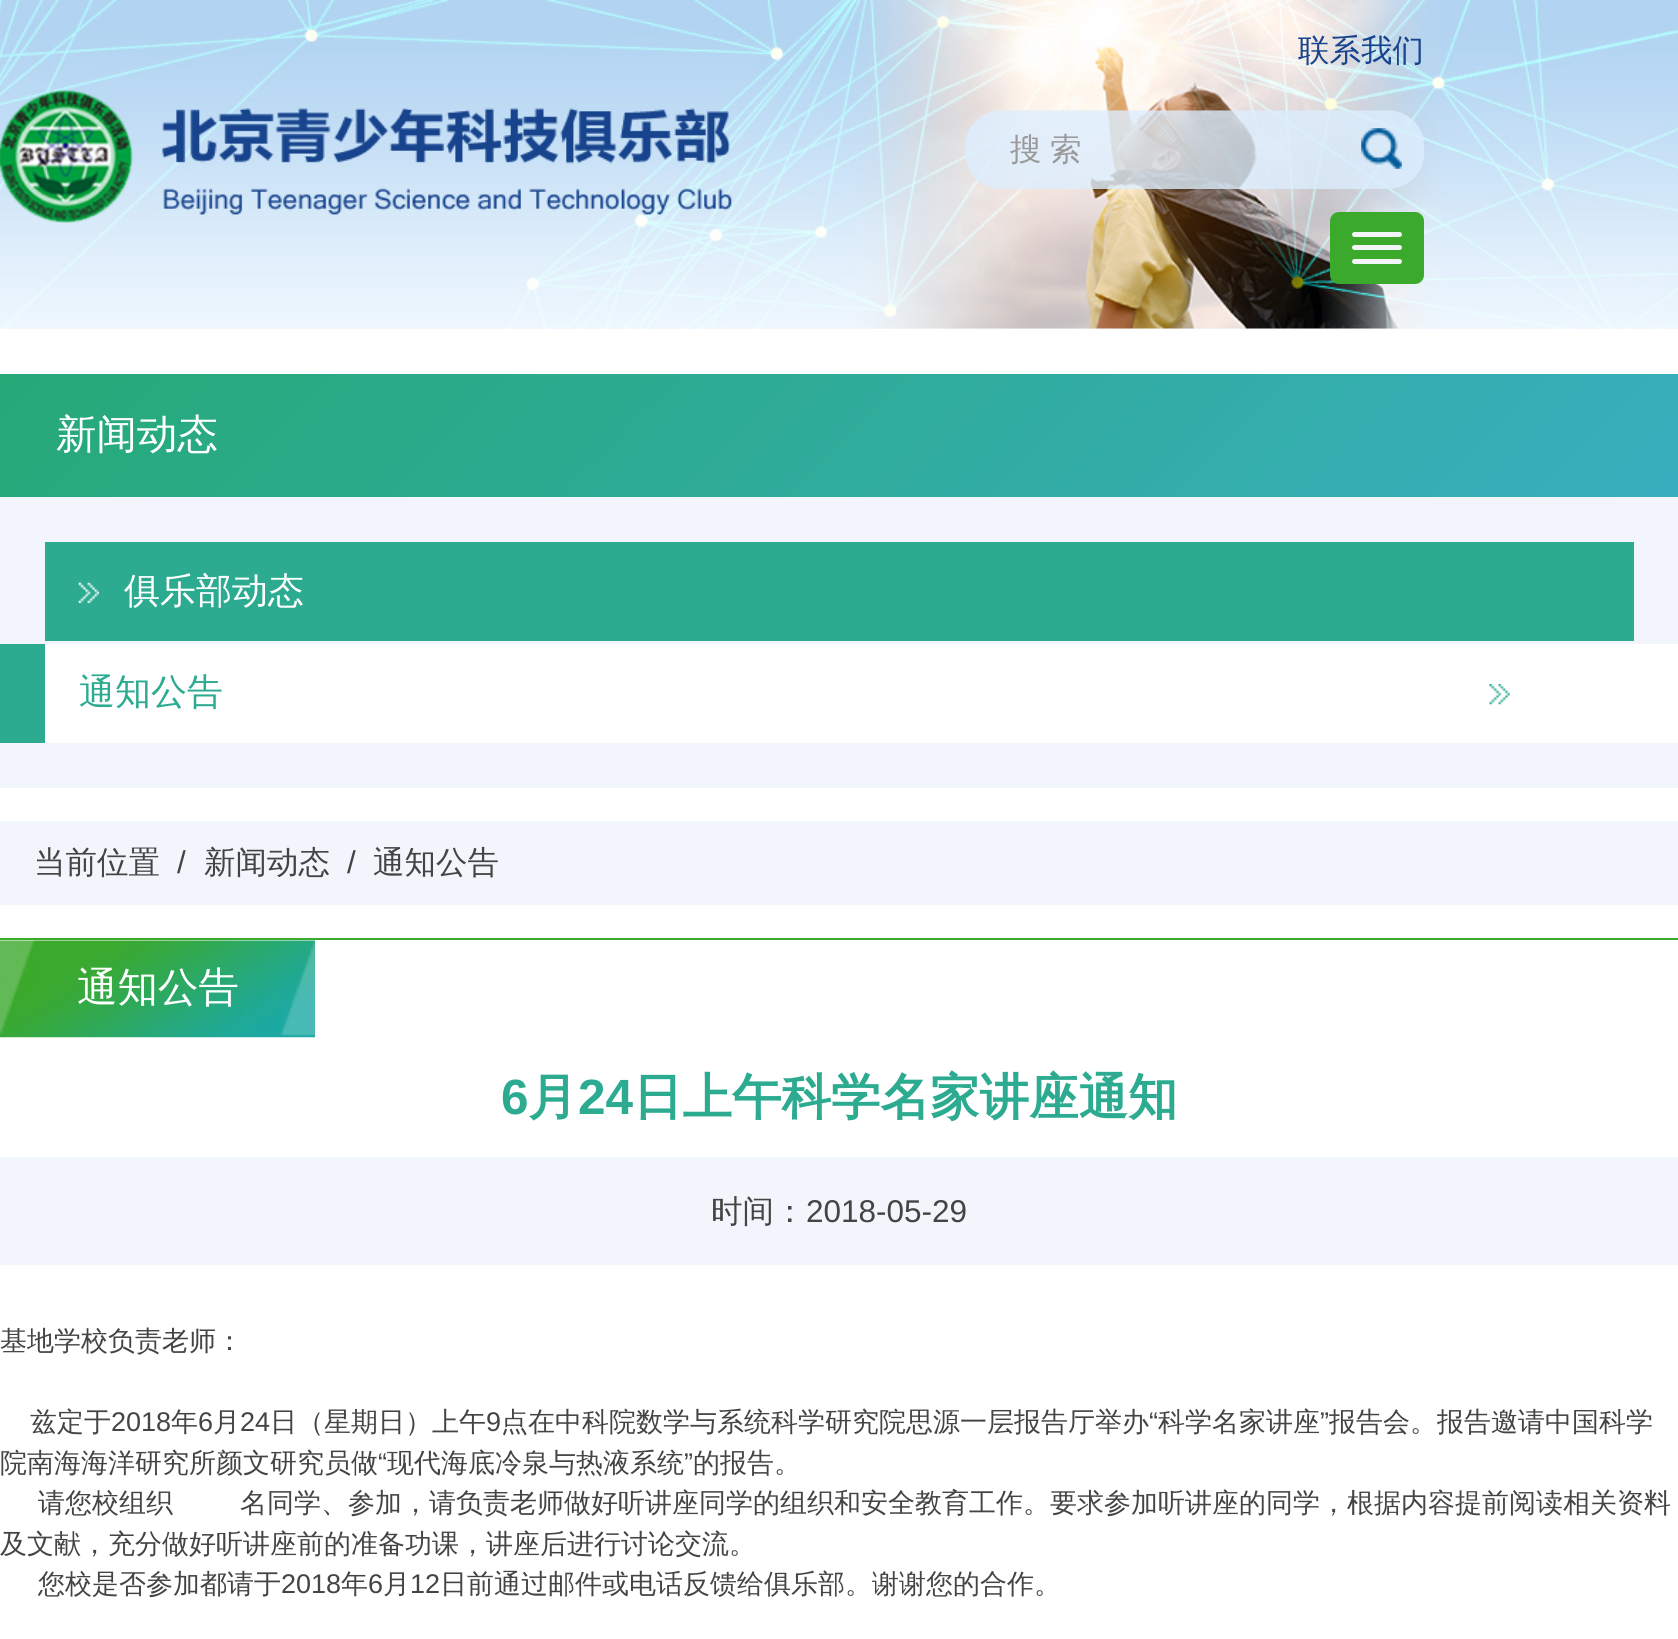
#include <cairo.h>
#include <math.h>
#include <stddef.h>


static void rgb(cairo_t *cr, int r, int g, int b)
{
	cairo_set_source_rgb(cr, r / 255.0, g / 255.0, b / 255.0);
}

static void face(cairo_t *cr, const char *family, double size, int italic, int bold)
{
	cairo_select_font_face(cr, family, italic ? CAIRO_FONT_SLANT_ITALIC : CAIRO_FONT_SLANT_NORMAL,
		bold ? CAIRO_FONT_WEIGHT_BOLD : CAIRO_FONT_WEIGHT_NORMAL);
	cairo_set_font_size(cr, size);
}

static void label(cairo_t *cr, double x, double y, const char *s)
{
	cairo_move_to(cr, x, y);
	cairo_show_text(cr, s);
}

static void tracked(cairo_t *cr, double x, double y, const char *s, double letter, double word)
{
	cairo_move_to(cr, x, y);
	while (*s) {
		char ch[5] = {0};
		int n = 0;
		do ch[n++] = *s++; while ((*s & 0xC0) == 0x80);
		cairo_show_text(cr, ch);
		cairo_rel_move_to(cr, letter + word * (*ch == ' '), 0);
	}
}

static void rect(cairo_t *cr, double x, double y, double w, double h)
{
	cairo_rectangle(cr, x, y, w, h);
	cairo_fill(cr);
}

static void rrect(cairo_t *cr, double x, double y, double w, double h, double r)
{
	cairo_new_sub_path(cr);
	cairo_arc(cr, x + w - r, y + h - r, r, 0, M_PI / 2);
	cairo_arc(cr, x + r, y + h - r, r, M_PI / 2, M_PI);
	cairo_arc(cr, x + r, y + r, r, M_PI, 1.5 * M_PI);
	cairo_arc(cr, x + w - r, y + r, r, 1.5 * M_PI, 2 * M_PI);
	cairo_close_path(cr);
}

static void image(cairo_t *cr, const char *path, double x, double y, double w, double h)
{
	cairo_surface_t *image = cairo_image_surface_create_from_png(path);
	cairo_save(cr);
	cairo_set_source_surface(cr, image, x, y);
	cairo_rectangle(cr, x, y, w, h);
	cairo_fill(cr);
	cairo_restore(cr);
	cairo_surface_destroy(image);
}

static void draw(cairo_t *cr) {
	cairo_pattern_t *gradient;
	rgb(cr, 255, 255, 255);
	cairo_paint(cr);
	gradient = cairo_pattern_create_linear(839, 0, 839, 329);
	cairo_pattern_add_color_stop_rgba(gradient, 0, 0.698, 0.831, 0.949, 1);
	cairo_pattern_add_color_stop_rgba(gradient, 1, 0.949, 0.976, 1, 1);
	cairo_set_source(cr, gradient);
	cairo_pattern_destroy(gradient);
	rect(cr, 0, 328, 1678, 1);
	image(cr, "image0.png", 0, 0, 1678, 329);
	image(cr, "image1.png", 0, 90, 732, 133);
	face(cr, "WenQuanYi Zen Hei Medium", 31.5, 0, 0);
	rgb(cr, 23, 68, 141);
	label(cr, 1298, 61, "联系我们");
	image(cr, "image2.png", 965, 110, 459, 79);
	rgb(cr, 153, 153, 153);
	tracked(cr, 1010, 160, "搜 索", 0, -1);
	image(cr, "image3.png", 1361, 128, 41, 41);
	rgb(cr, 59, 169, 44);
	rrect(cr, 1330, 212, 94, 72, 9);
	cairo_fill(cr);
	rgb(cr, 243, 246, 249);
	rrect(cr, 1352, 232, 50, 5, 2.5);
	cairo_fill(cr);
	rrect(cr, 1352, 245, 50, 5, 2.5);
	cairo_fill(cr);
	rrect(cr, 1352, 259, 50, 5, 2.5);
	cairo_fill(cr);
	rgb(cr, 242, 245, 251);
	rect(cr, 0, 497, 1678, 291);
	gradient = cairo_pattern_create_linear(389, -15, 1290, 886);
	cairo_pattern_add_color_stop_rgba(gradient, 0, 0.149, 0.663, 0.467, 1);
	cairo_pattern_add_color_stop_rgba(gradient, 1, 0.224, 0.682, 0.749, 1);
	cairo_set_source(cr, gradient);
	cairo_pattern_destroy(gradient);
	rect(cr, 0, 374, 1678, 123);
	face(cr, "WenQuanYi Zen Hei Medium", 40.5, 0, 0);
	rgb(cr, 255, 255, 255);
	label(cr, 56, 448, "新闻动态");
	rgb(cr, 45, 171, 145);
	rect(cr, 45, 542, 1589, 99);
	image(cr, "image4.png", 78, 582, 21, 21);
	face(cr, "WenQuanYi Zen Hei Medium", 36, 0, 0);
	rgb(cr, 255, 255, 255);
	label(cr, 124, 603, "俱乐部动态");
	rect(cr, 45, 644, 1633, 99);
	rgb(cr, 45, 171, 145);
	rect(cr, 0, 644, 45, 99);
	image(cr, "image5.png", 1489, 684, 21, 21);
	label(cr, 79, 704, "通知公告");
	rgb(cr, 242, 245, 251);
	rect(cr, 0, 821, 1678, 84);
	face(cr, "WenQuanYi Zen Hei Medium", 31.5, 0, 0);
	rgb(cr, 68, 68, 68);
	label(cr, 34, 873, "当前位置");
	face(cr, "Liberation Sans", 31.5, 0, 0);
	label(cr, 177, 873, "/");
	face(cr, "WenQuanYi Zen Hei Medium", 31.5, 0, 0);
	label(cr, 204, 873, "新闻动态");
	face(cr, "Liberation Sans", 31.5, 0, 0);
	label(cr, 347, 873, "/");
	face(cr, "WenQuanYi Zen Hei Medium", 31.5, 0, 0);
	label(cr, 373, 873, "通知公告");
	rgb(cr, 60, 170, 45);
	rect(cr, 0, 938, 1678, 2);
	image(cr, "image6.png", 0, 940, 315, 98);
	face(cr, "WenQuanYi Zen Hei Medium", 40.5, 0, 0);
	rgb(cr, 255, 255, 255);
	label(cr, 77, 1001, "通知公告");
	face(cr, "Liberation Sans", 49.5, 0, 1);
	rgb(cr, 45, 171, 145);
	label(cr, 501, 1114, "6");
	face(cr, "WenQuanYi Zen Hei", 49.5, 0, 1);
	label(cr, 528, 1114, "月");
	face(cr, "Liberation Sans", 49.5, 0, 1);
	label(cr, 578, 1114, "24");
	face(cr, "WenQuanYi Zen Hei", 49.5, 0, 1);
	label(cr, 633, 1114, "日上午科学名家讲座通知");
	rgb(cr, 242, 245, 251);
	rect(cr, 0, 1157, 1678, 108);
	face(cr, "WenQuanYi Zen Hei Medium", 31.5, 0, 0);
	rgb(cr, 68, 68, 68);
	label(cr, 711, 1222, "时间：");
	face(cr, "Liberation Sans", 31.5, 0, 0);
	label(cr, 806, 1222, "2018-05-29");
	face(cr, "WenQuanYi Zen Hei Medium", 27, 0, 0);
	label(cr, 0, 1350, "基地学校负责老师：");
	label(cr, 30, 1431, "兹定于");
	face(cr, "Liberation Sans", 27, 0, 0);
	label(cr, 111, 1431, "2018");
	face(cr, "WenQuanYi Zen Hei Medium", 27, 0, 0);
	label(cr, 171, 1431, "年");
	face(cr, "Liberation Sans", 27, 0, 0);
	label(cr, 198, 1431, "6");
	face(cr, "WenQuanYi Zen Hei Medium", 27, 0, 0);
	label(cr, 213, 1431, "月");
	face(cr, "Liberation Sans", 27, 0, 0);
	label(cr, 240, 1431, "24");
	face(cr, "WenQuanYi Zen Hei Medium", 27, 0, 0);
	label(cr, 270, 1431, "日（星期日）上午");
	face(cr, "Liberation Sans", 27, 0, 0);
	label(cr, 486, 1431, "9");
	face(cr, "WenQuanYi Zen Hei Medium", 27, 0, 0);
	label(cr, 501, 1431, "点在中科院数学与系统科学研究院思源一层报告厅举办");
	face(cr, "Liberation Sans", 27, 0, 0);
	label(cr, 1149, 1431, "“");
	face(cr, "WenQuanYi Zen Hei Medium", 27, 0, 0);
	label(cr, 1158, 1431, "科学名家讲座");
	face(cr, "Liberation Sans", 27, 0, 0);
	label(cr, 1320, 1431, "”");
	face(cr, "WenQuanYi Zen Hei Medium", 27, 0, 0);
	label(cr, 1329, 1431, "报告会。报告邀请中国科学");
	label(cr, 0, 1472, "院南海海洋研究所颜文研究员做");
	face(cr, "Liberation Sans", 27, 0, 0);
	label(cr, 378, 1472, "“");
	face(cr, "WenQuanYi Zen Hei Medium", 27, 0, 0);
	label(cr, 387, 1472, "现代海底冷泉与热液系统");
	face(cr, "Liberation Sans", 27, 0, 0);
	label(cr, 684, 1472, "”");
	face(cr, "WenQuanYi Zen Hei Medium", 27, 0, 0);
	label(cr, 693, 1472, "的报告。");
	label(cr, 38, 1512, "请您校组织");
	label(cr, 240, 1512, "名同学、参加，请负责老师做好听讲座同学的组织和安全教育工作。要求参加听讲座的同学，根据内容提前阅读相关资料");
	label(cr, 0, 1553, "及文献，充分做好听讲座前的准备功课，讲座后进行讨论交流。");
	label(cr, 38, 1593, "您校是否参加都请于");
	face(cr, "Liberation Sans", 27, 0, 0);
	label(cr, 281, 1593, "2018");
	face(cr, "WenQuanYi Zen Hei Medium", 27, 0, 0);
	label(cr, 341, 1593, "年");
	face(cr, "Liberation Sans", 27, 0, 0);
	label(cr, 368, 1593, "6");
	face(cr, "WenQuanYi Zen Hei Medium", 27, 0, 0);
	label(cr, 383, 1593, "月");
	face(cr, "Liberation Sans", 27, 0, 0);
	label(cr, 410, 1593, "12");
	face(cr, "WenQuanYi Zen Hei Medium", 27, 0, 0);
	label(cr, 440, 1593, "日前通过邮件或电话反馈给俱乐部。谢谢您的合作。");
}

int main(void) {
	cairo_surface_t *surface = cairo_image_surface_create(CAIRO_FORMAT_RGB24, 1678, 1639);
	cairo_t *cr = cairo_create(surface);
	cairo_font_options_t *options = cairo_font_options_create();
	cairo_font_options_set_hint_metrics(options, CAIRO_HINT_METRICS_OFF);
	cairo_font_options_set_hint_style(options, CAIRO_HINT_STYLE_NONE);
	cairo_set_font_options(cr, options);
	cairo_set_miter_limit(cr, 4);
	draw(cr);
	cairo_surface_write_to_png(surface, "render.png");
	cairo_font_options_destroy(options);
	cairo_destroy(cr);
	cairo_surface_destroy(surface);
	return 0;
}
